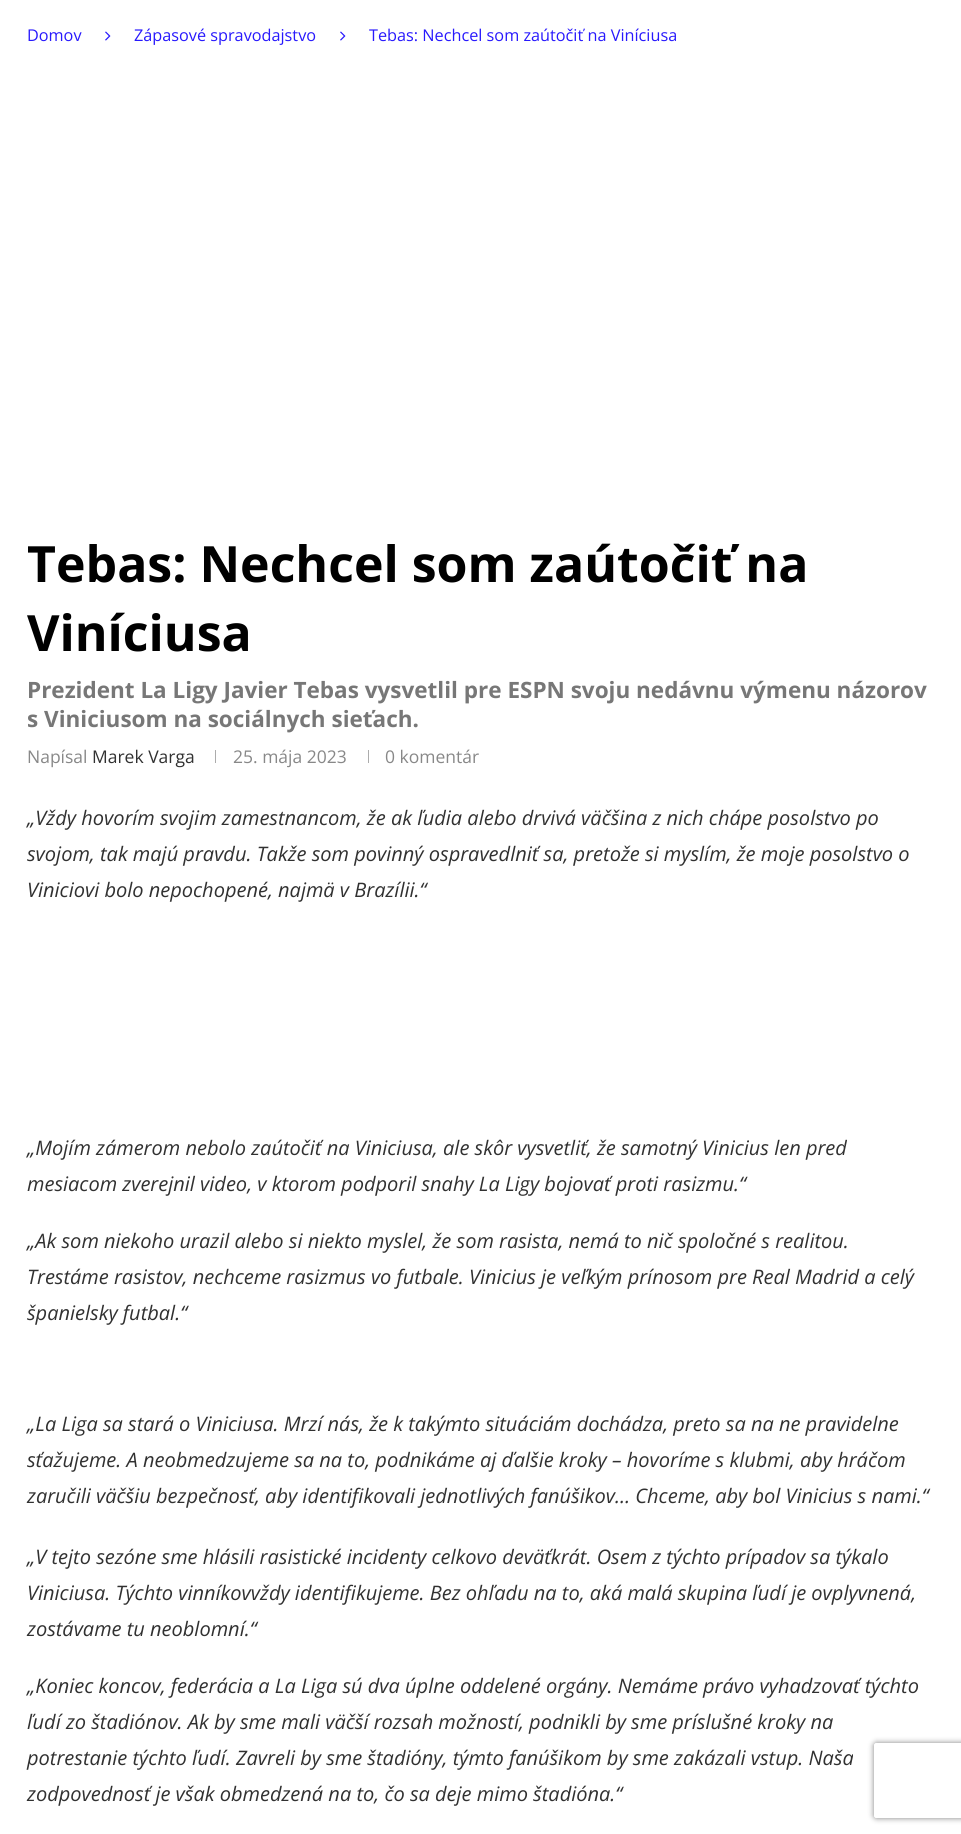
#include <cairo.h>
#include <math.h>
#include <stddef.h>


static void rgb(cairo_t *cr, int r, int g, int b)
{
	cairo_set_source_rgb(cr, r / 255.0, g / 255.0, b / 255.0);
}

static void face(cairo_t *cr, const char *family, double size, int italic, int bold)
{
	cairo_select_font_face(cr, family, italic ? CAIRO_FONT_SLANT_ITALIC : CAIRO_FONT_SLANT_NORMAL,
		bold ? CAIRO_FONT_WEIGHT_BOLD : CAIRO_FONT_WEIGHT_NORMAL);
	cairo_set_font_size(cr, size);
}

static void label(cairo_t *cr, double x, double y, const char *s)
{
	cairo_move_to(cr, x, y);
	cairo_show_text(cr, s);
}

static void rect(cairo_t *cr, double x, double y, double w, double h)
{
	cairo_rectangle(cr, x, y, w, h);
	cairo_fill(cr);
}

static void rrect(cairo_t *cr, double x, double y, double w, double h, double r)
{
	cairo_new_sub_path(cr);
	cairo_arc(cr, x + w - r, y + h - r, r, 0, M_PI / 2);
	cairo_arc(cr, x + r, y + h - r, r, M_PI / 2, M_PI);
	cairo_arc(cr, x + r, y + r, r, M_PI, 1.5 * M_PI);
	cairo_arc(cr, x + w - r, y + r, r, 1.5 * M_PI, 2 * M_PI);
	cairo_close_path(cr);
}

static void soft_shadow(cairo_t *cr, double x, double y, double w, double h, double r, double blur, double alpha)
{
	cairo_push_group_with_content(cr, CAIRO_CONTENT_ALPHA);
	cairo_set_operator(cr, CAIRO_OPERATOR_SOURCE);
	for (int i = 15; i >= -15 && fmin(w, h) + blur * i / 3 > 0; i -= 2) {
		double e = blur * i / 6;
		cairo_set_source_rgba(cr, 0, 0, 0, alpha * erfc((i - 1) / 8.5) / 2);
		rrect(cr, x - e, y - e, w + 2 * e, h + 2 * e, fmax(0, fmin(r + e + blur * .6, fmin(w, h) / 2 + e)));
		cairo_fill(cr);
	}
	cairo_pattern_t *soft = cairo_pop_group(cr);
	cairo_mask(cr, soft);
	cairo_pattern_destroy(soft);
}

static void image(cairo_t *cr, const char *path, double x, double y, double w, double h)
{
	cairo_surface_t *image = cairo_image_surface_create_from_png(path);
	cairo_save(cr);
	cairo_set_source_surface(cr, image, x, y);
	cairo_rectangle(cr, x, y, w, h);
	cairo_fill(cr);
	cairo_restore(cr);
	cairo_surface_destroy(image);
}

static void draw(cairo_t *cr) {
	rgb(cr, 255, 255, 255);
	cairo_paint(cr);
	face(cr, "Open Sans", 16.25, 0, 0);
	rgb(cr, 40, 25, 253);
	label(cr, 27, 41, "Domov");
	image(cr, "image0.png", 105, 31, 6, 10);
	label(cr, 134, 41, "Zápasové spravodajstvo");
	image(cr, "image0.png", 340, 31, 6, 10);
	label(cr, 369, 41, "Tebas: Nechcel som zaútočiť na Viníciusa");
	face(cr, "Open Sans", 50, 0, 1);
	rgb(cr, 0, 0, 0);
	label(cr, 27, 582, "Tebas: Nechcel som zaútočiť na");
	label(cr, 27, 651, "Viníciusa");
	face(cr, "Open Sans", 22.5, 0, 1);
	rgb(cr, 119, 119, 119);
	label(cr, 27, 698, "Prezident La Ligy Javier Tebas vysvetlil pre ESPN svoju nedávnu výmenu názorov");
	label(cr, 27, 727, "s Viniciusom na sociálnych sieťach.");
	face(cr, "Open Sans", 17.5, 0, 0);
	rgb(cr, 136, 136, 136);
	label(cr, 27, 763, "Napísal");
	rgb(cr, 49, 49, 49);
	label(cr, 92, 763, "Marek Varga");
	rgb(cr, 172, 172, 172);
	rect(cr, 215, 750, 1, 13);
	rgb(cr, 136, 136, 136);
	label(cr, 233, 763, "25. mája 2023");
	rgb(cr, 172, 172, 172);
	rect(cr, 368, 750, 1, 13);
	rgb(cr, 136, 136, 136);
	label(cr, 385, 763, "0 komentár");
	face(cr, "Open Sans", 20, 1, 0);
	rgb(cr, 49, 49, 49);
	label(cr, 27, 825, "„Vždy hovorím svojim zamestnancom, že ak ľudia alebo drvivá väčšina z nich chápe posolstvo po");
	label(cr, 27, 861, "svojom, tak majú pravdu. Takže som povinný ospravedlniť sa, pretože si myslím, že moje posolstvo o");
	label(cr, 27, 897, "Viniciovi bolo nepochopené, najmä v Brazílii.“");
	label(cr, 27, 1155, "„Mojím zámerom nebolo zaútočiť na Viniciusa, ale skôr vysvetliť, že samotný Vinicius len pred");
	label(cr, 27, 1191, "mesiacom zverejnil video, v ktorom podporil snahy La Ligy bojovať proti rasizmu.“");
	label(cr, 27, 1248, "„Ak som niekoho urazil alebo si niekto myslel, že som rasista, nemá to nič spoločné s realitou.");
	label(cr, 27, 1284, "Trestáme rasistov, nechceme rasizmus vo futbale. Vinicius je veľkým prínosom pre Real Madrid a celý");
	label(cr, 27, 1320, "španielsky futbal.“");
	label(cr, 27, 1431, "„La Liga sa stará o Viniciusa. Mrzí nás, že k takýmto situáciám dochádza, preto sa na ne pravidelne");
	label(cr, 27, 1467, "sťažujeme. A neobmedzujeme sa na to, podnikáme aj ďalšie kroky – hovoríme s klubmi, aby hráčom");
	label(cr, 27, 1503, "zaručili väčšiu bezpečnosť, aby identifikovali jednotlivých fanúšikov… Chceme, aby bol Vinicius s nami.“");
	label(cr, 27, 1564, "„V tejto sezóne sme hlásili rasistické incidenty celkovo deväťkrát. Osem z týchto prípadov sa týkalo");
	label(cr, 27, 1600, "Viniciusa. Týchto vinníkovvždy identifikujeme. Bez ohľadu na to, aká malá skupina ľudí je ovplyvnená,");
	label(cr, 27, 1636, "zostávame tu neoblomní.“");
	label(cr, 27, 1693, "„Koniec koncov, federácia a La Liga sú dva úplne oddelené orgány. Nemáme právo vyhadzovať týchto");
	label(cr, 27, 1729, "ľudí zo štadiónov. Ak by sme mali väčší rozsah možností, podnikli by sme príslušné kroky na");
	label(cr, 27, 1765, "potrestanie týchto ľudí. Zavreli by sme štadióny, týmto fanúšikom by sme zakázali vstup. Naša");
	label(cr, 27, 1801, "zodpovednosť je však obmedzená na to, čo sa deje mimo štadióna.“");
	cairo_save(cr);
	cairo_set_fill_rule(cr, CAIRO_FILL_RULE_EVEN_ODD);
	cairo_new_path(cr);
	cairo_move_to(cr, 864, 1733);
	cairo_line_to(cr, 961, 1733);
	cairo_line_to(cr, 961, 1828);
	cairo_line_to(cr, 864, 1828);
	cairo_close_path(cr);
	cairo_move_to(cr, 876.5, 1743);
	cairo_line_to(cr, 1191.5, 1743);
	cairo_curve_to(cr, 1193, 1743, 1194, 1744, 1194, 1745.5);
	cairo_line_to(cr, 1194, 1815.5);
	cairo_curve_to(cr, 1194, 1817, 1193, 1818, 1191.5, 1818);
	cairo_line_to(cr, 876.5, 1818);
	cairo_curve_to(cr, 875, 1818, 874, 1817, 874, 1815.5);
	cairo_line_to(cr, 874, 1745.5);
	cairo_curve_to(cr, 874, 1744, 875, 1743, 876.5, 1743);
	cairo_close_path(cr);
	cairo_clip(cr);
	rgb(cr, 128, 128, 128);
	soft_shadow(cr, 874, 1743, 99, 75, 2.5, 3, 1);
	cairo_restore(cr);
}

int main(void) {
	cairo_surface_t *surface = cairo_image_surface_create(CAIRO_FORMAT_RGB24, 961, 1834);
	cairo_t *cr = cairo_create(surface);
	cairo_font_options_t *options = cairo_font_options_create();
	cairo_font_options_set_hint_metrics(options, CAIRO_HINT_METRICS_OFF);
	cairo_font_options_set_hint_style(options, CAIRO_HINT_STYLE_NONE);
	cairo_set_font_options(cr, options);
	cairo_set_miter_limit(cr, 4);
	draw(cr);
	cairo_surface_write_to_png(surface, "render.png");
	cairo_font_options_destroy(options);
	cairo_destroy(cr);
	cairo_surface_destroy(surface);
	return 0;
}
